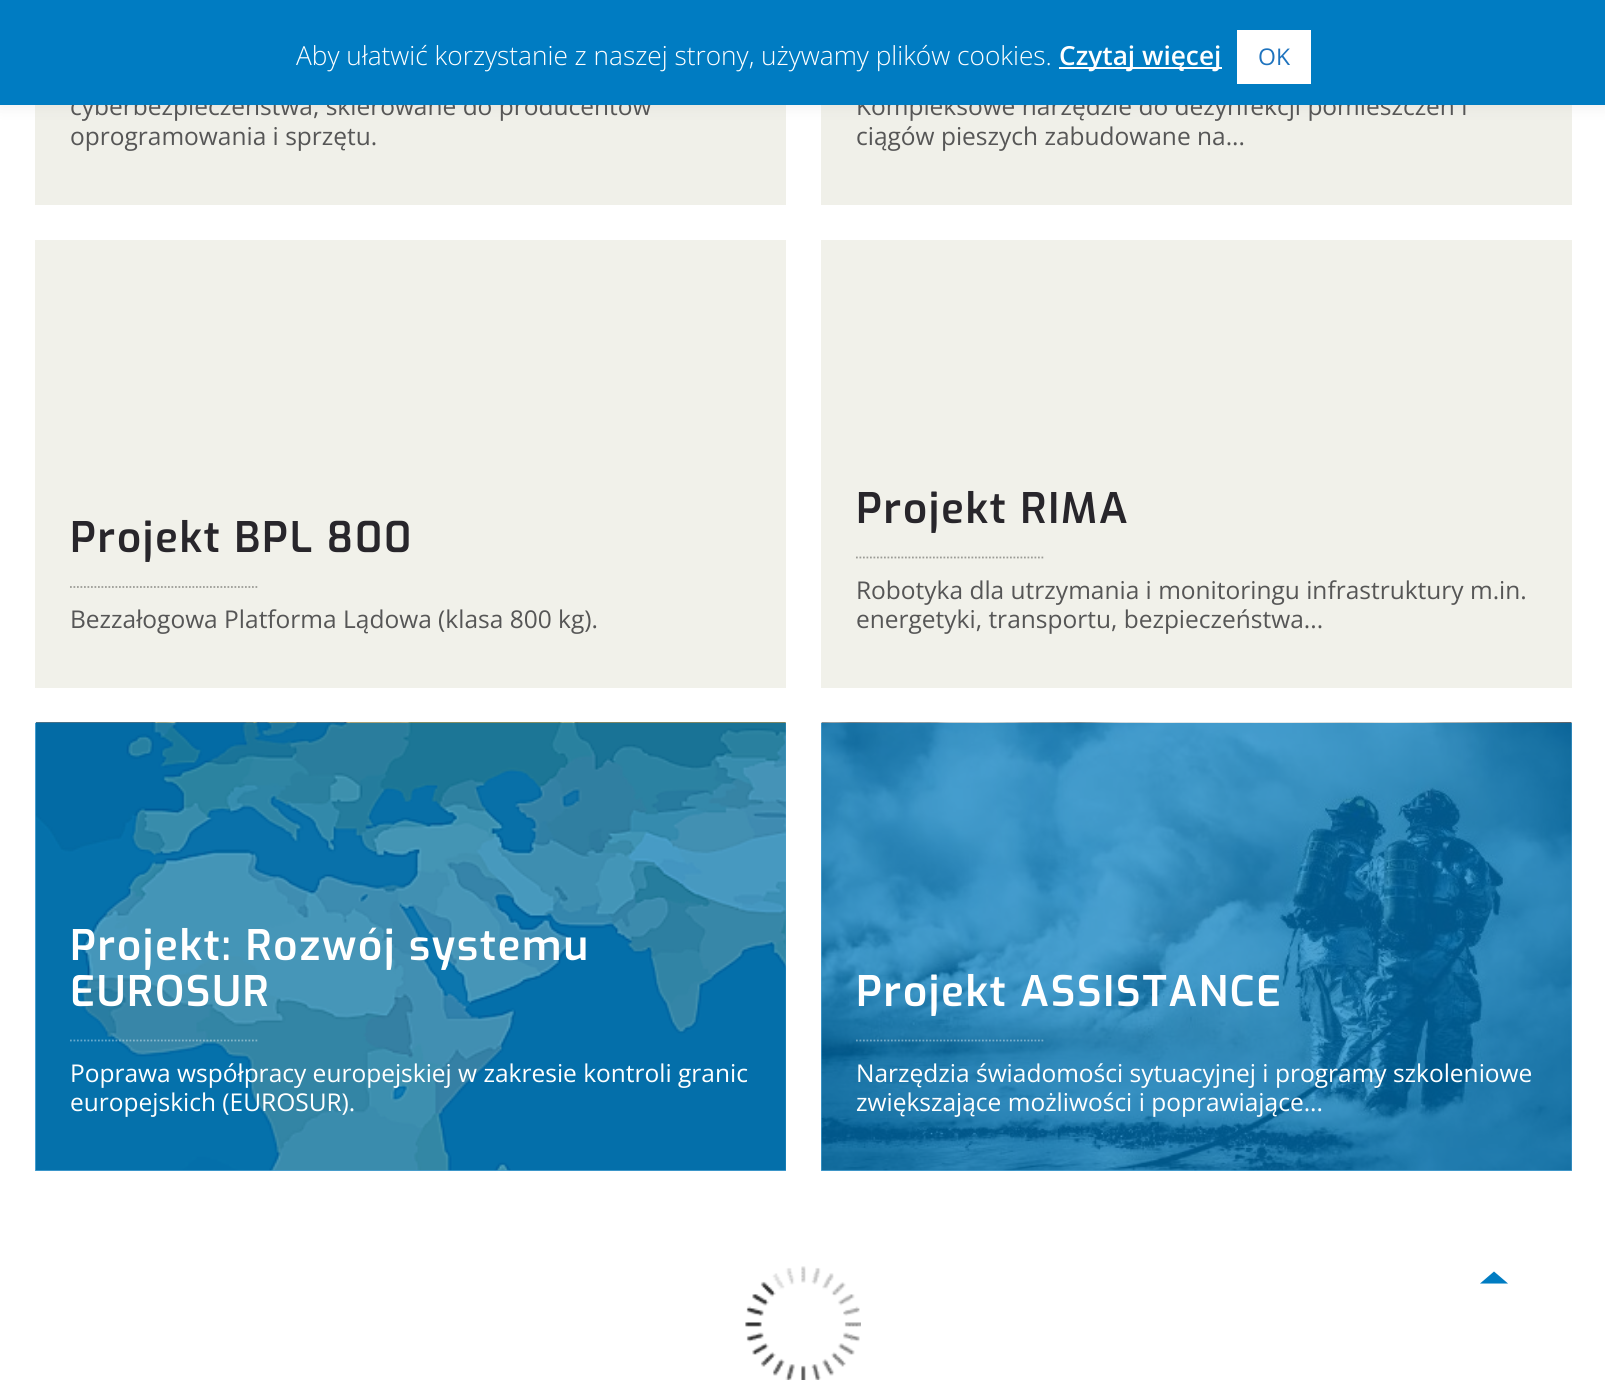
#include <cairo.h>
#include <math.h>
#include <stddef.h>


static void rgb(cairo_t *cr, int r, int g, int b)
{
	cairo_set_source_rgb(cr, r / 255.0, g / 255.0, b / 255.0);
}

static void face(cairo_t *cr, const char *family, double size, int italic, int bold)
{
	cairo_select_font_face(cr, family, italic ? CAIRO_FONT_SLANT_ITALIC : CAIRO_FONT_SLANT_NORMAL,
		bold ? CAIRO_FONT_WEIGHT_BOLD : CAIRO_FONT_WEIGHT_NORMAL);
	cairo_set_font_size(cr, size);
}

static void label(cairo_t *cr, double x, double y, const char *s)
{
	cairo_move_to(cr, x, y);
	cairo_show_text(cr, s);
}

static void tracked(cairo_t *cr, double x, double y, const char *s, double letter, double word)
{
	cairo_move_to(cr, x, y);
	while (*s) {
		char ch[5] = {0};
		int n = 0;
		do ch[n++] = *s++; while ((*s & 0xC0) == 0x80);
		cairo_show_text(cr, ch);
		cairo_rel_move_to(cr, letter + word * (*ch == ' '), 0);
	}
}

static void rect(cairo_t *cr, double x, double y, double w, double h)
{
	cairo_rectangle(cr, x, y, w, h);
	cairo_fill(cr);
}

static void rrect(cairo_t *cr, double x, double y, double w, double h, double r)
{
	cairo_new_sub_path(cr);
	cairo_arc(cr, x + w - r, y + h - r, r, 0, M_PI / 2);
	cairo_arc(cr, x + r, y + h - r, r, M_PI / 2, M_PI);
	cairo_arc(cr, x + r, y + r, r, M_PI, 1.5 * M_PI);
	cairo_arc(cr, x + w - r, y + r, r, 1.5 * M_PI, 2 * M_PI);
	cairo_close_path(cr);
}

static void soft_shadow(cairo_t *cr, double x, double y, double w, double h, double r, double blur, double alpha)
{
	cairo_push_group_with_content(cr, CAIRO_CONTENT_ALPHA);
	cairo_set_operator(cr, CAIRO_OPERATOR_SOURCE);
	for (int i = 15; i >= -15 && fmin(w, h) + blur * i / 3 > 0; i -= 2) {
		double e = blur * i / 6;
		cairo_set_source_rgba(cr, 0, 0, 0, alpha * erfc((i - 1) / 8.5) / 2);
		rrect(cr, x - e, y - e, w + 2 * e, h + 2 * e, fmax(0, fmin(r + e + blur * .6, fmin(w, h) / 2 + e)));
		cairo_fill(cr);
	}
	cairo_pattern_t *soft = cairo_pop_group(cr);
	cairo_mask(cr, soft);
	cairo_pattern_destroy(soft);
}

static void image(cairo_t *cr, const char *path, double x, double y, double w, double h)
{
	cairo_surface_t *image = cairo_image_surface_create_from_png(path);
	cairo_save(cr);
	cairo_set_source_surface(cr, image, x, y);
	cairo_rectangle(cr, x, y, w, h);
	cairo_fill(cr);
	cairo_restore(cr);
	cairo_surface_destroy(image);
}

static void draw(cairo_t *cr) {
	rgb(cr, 255, 255, 255);
	cairo_paint(cr);
	rgb(cr, 77, 163, 212);
	rect(cr, 821, 723, 751, 448);
	rect(cr, 35, 723, 751, 448);
	rgb(cr, 240, 240, 233);
	rect(cr, 35, 105, 751, 100);
	rect(cr, 821, 105, 751, 100);
	rgb(cr, 172, 171, 171);
	soft_shadow(cr, 0, -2, 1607, 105, 0, 9, 0.3);
	face(cr, "Open Sans", 24.5, 0, 0);
	rgb(cr, 86, 86, 86);
	label(cr, 70, 115, "cyberbezpieczeństwa, skierowane do producentów");
	label(cr, 856, 115, "Kompleksowe narzędzie do dezynfekcji pomieszczeń i");
	rgb(cr, 0, 124, 194);
	rect(cr, 0, 0, 1605, 105);
	face(cr, "Open Sans Light", 26.25, 0, 0);
	rgb(cr, 255, 255, 255);
	label(cr, 296, 65, "Aby ułatwić korzystanie z naszej strony, używamy plików cookies.");
	rect(cr, 1059, 67, 163, 2);
	face(cr, "Open Sans SemiBold", 26.25, 0, 0);
	label(cr, 1059, 65, "Czytaj więcej");
	rect(cr, 1237, 30, 74, 54);
	face(cr, "Open Sans", 23, 0, 0);
	rgb(cr, 30, 115, 190);
	label(cr, 1258, 65, "OK");
	face(cr, "Open Sans", 24.5, 0, 0);
	rgb(cr, 86, 86, 86);
	label(cr, 70, 145, "oprogramowania i sprzętu.");
	label(cr, 856, 145, "ciągów pieszych zabudowane na...");
	rgb(cr, 241, 241, 234);
	rect(cr, 35, 240, 751, 448);
	face(cr, "Exo SemiBold", 42, 0, 0);
	rgb(cr, 40, 38, 43);
	tracked(cr, 70, 552, "Projekt BPL 800", 1.75, 0);
	cairo_new_path(cr);
	cairo_move_to(cr, 70, 587);
	cairo_line_to(cr, 259, 587);
	rgb(cr, 155, 155, 150);
	cairo_set_line_width(cr, 1.8);
	cairo_set_dash(cr, (double[]){1.75, 1.75}, 2, 0);
	cairo_stroke(cr);
	face(cr, "Open Sans", 24.5, 0, 0);
	rgb(cr, 86, 86, 86);
	label(cr, 70, 628, "Bezzałogowa Platforma Lądowa (klasa 800 kg).");
	rgb(cr, 241, 241, 234);
	rect(cr, 821, 240, 751, 448);
	face(cr, "Exo SemiBold", 42, 0, 0);
	rgb(cr, 40, 38, 43);
	tracked(cr, 856, 523, "Projekt RIMA", 1.75, 0);
	cairo_new_path(cr);
	cairo_move_to(cr, 856, 557.5);
	cairo_line_to(cr, 1045, 557.5);
	rgb(cr, 155, 155, 150);
	cairo_stroke(cr);
	face(cr, "Open Sans", 24.5, 0, 0);
	rgb(cr, 86, 86, 86);
	label(cr, 856, 599, "Robotyka dla utrzymania i monitoringu infrastruktury m.in.");
	label(cr, 856, 628, "energetyki, transportu, bezpieczeństwa...");
	image(cr, "image0.png", 35, 722, 751, 449);
	face(cr, "Exo SemiBold", 42, 0, 0);
	rgb(cr, 255, 255, 255);
	tracked(cr, 70, 960, "Projekt: Rozwój systemu", 1.75, 0);
	tracked(cr, 70, 1006, "EUROSUR", 1.75, 0);
	cairo_new_path(cr);
	cairo_move_to(cr, 70, 1040.5);
	cairo_line_to(cr, 259, 1040.5);
	cairo_set_source_rgba(cr, 1, 1, 1, 0.4);
	cairo_stroke(cr);
	face(cr, "Open Sans", 24.5, 0, 0);
	rgb(cr, 255, 255, 255);
	label(cr, 70, 1082, "Poprawa współpracy europejskiej w zakresie kontroli granic");
	label(cr, 70, 1111, "europejskich (EUROSUR).");
	image(cr, "image1.png", 821, 722, 751, 449);
	face(cr, "Exo SemiBold", 42, 0, 0);
	tracked(cr, 856, 1006, "Projekt ASSISTANCE", 1.75, 0);
	cairo_new_path(cr);
	cairo_move_to(cr, 856, 1040.5);
	cairo_line_to(cr, 1045, 1040.5);
	cairo_set_source_rgba(cr, 1, 1, 1, 0.4);
	cairo_stroke(cr);
	face(cr, "Open Sans", 24.5, 0, 0);
	rgb(cr, 255, 255, 255);
	label(cr, 856, 1082, "Narzędzia świadomości sytuacyjnej i programy szkoleniowe");
	label(cr, 856, 1111, "zwiększające możliwości i poprawiające...");
	image(cr, "image2.png", 745, 1266, 116, 114);
	rgb(cr, 0, 124, 194);
	cairo_new_path(cr);
	cairo_move_to(cr, 1508, 1283.5);
	cairo_line_to(cr, 1480, 1283.5);
	cairo_line_to(cr, 1494, 1271.5);
	cairo_close_path(cr);
	cairo_fill(cr);
}

int main(void) {
	cairo_surface_t *surface = cairo_image_surface_create(CAIRO_FORMAT_RGB24, 1605, 1380);
	cairo_t *cr = cairo_create(surface);
	cairo_font_options_t *options = cairo_font_options_create();
	cairo_font_options_set_hint_metrics(options, CAIRO_HINT_METRICS_OFF);
	cairo_font_options_set_hint_style(options, CAIRO_HINT_STYLE_NONE);
	cairo_set_font_options(cr, options);
	cairo_set_miter_limit(cr, 4);
	draw(cr);
	cairo_surface_write_to_png(surface, "render.png");
	cairo_font_options_destroy(options);
	cairo_destroy(cr);
	cairo_surface_destroy(surface);
	return 0;
}
